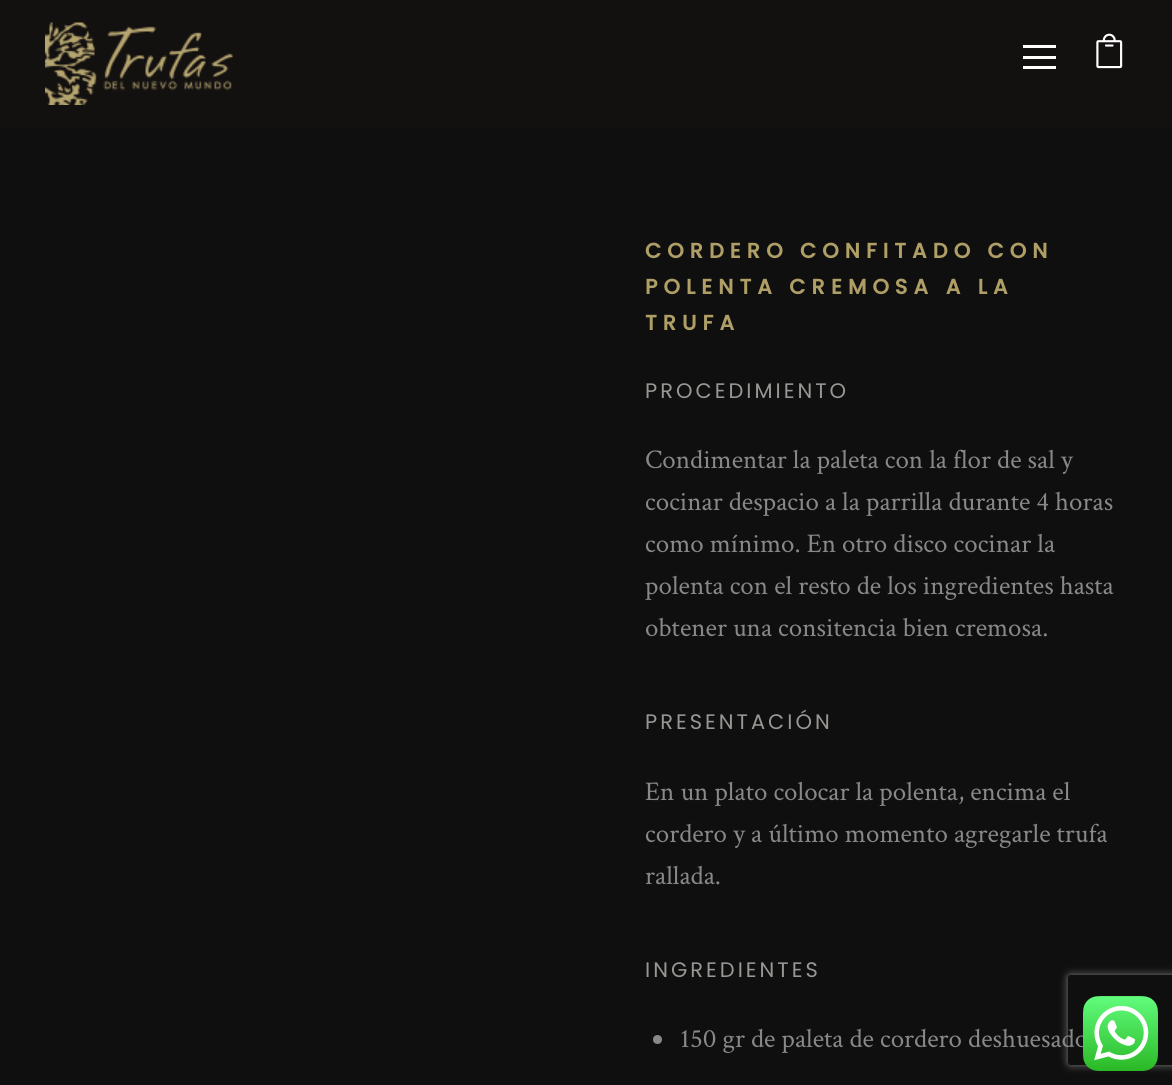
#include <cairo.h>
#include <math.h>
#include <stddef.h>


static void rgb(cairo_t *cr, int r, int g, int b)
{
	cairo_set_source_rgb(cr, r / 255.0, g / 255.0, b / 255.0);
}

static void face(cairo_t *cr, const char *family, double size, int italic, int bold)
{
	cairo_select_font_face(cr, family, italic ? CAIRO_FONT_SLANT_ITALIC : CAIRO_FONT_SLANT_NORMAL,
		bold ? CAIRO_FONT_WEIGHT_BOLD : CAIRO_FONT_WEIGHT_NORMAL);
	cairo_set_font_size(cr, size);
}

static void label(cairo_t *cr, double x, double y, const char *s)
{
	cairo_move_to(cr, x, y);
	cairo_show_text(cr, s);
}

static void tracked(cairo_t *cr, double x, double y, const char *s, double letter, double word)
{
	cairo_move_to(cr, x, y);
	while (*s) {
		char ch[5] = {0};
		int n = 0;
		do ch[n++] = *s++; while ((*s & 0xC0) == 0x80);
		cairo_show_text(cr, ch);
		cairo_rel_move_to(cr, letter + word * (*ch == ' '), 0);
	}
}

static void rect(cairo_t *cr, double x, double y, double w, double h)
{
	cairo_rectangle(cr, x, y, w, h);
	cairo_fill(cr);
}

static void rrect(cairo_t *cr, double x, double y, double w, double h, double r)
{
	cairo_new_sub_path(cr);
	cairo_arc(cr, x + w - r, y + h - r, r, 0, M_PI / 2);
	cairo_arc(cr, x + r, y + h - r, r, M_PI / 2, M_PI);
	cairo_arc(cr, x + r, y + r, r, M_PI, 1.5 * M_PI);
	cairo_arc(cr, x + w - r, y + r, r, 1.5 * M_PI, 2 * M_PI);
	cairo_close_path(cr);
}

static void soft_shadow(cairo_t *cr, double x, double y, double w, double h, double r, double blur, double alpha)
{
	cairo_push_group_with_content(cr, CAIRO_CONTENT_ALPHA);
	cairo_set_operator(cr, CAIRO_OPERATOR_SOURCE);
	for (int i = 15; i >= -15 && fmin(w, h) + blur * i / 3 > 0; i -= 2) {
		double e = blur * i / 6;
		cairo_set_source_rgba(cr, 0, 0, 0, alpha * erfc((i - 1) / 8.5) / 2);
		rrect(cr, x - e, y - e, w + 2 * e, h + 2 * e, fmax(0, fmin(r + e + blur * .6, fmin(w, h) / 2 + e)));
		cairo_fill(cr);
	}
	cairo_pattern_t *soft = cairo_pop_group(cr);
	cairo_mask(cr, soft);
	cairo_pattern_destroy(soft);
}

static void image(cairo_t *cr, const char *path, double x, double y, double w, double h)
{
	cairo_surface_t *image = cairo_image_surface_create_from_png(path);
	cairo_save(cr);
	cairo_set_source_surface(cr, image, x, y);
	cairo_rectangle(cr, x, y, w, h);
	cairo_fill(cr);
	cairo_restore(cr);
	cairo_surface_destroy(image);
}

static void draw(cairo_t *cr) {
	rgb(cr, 15, 15, 15);
	cairo_paint(cr);
	rgb(cr, 19, 16, 16);
	rect(cr, 0, 0, 1172, 128);
	image(cr, "image0.png", 45, 22, 188, 83);
	rgb(cr, 255, 255, 255);
	rect(cr, 1023, 56, 33, 3);
	rect(cr, 1023, 45, 33, 3);
	rect(cr, 1023, 66, 33, 3);
	image(cr, "image1.png", 1096, 33, 27, 36);
	face(cr, "Poppins", 21, 0, 1);
	rgb(cr, 175, 159, 102);
	tracked(cr, 645, 258, "CORDERO CONFITADO CON", 6, 0);
	tracked(cr, 645, 294, "POLENTA CREMOSA A LA", 6, 0);
	tracked(cr, 645, 330, "TRUFA", 6, 0);
	face(cr, "Poppins", 21, 0, 0);
	rgb(cr, 153, 151, 148);
	tracked(cr, 645, 398, "PROCEDIMIENTO", 3, 0);
	face(cr, "Crimson Text", 27, 0, 0);
	rgb(cr, 136, 136, 136);
	label(cr, 645, 468, "Condimentar la paleta con la flor de sal y");
	label(cr, 645, 510, "cocinar despacio a la parrilla durante 4 horas");
	label(cr, 645, 552, "como mínimo. En otro disco cocinar la");
	label(cr, 645, 594, "polenta con el resto de los ingredientes hasta");
	label(cr, 645, 636, "obtener una consitencia bien cremosa.");
	face(cr, "Poppins", 21, 0, 0);
	rgb(cr, 153, 151, 148);
	tracked(cr, 645, 729, "PRESENTACIÓN", 3, 0);
	face(cr, "Crimson Text", 27, 0, 0);
	rgb(cr, 136, 136, 136);
	label(cr, 645, 800, "En un plato colocar la polenta, encima el");
	label(cr, 645, 842, "cordero y a último momento agregarle trufa");
	label(cr, 645, 884, "rallada.");
	face(cr, "Poppins", 21, 0, 0);
	rgb(cr, 153, 151, 148);
	tracked(cr, 645, 977, "INGREDIENTES", 3, 0);
	rgb(cr, 136, 136, 136);
	cairo_new_path(cr);
	cairo_arc(cr, 657.5, 1039.5, 4.5, 0, 2 * M_PI);
	cairo_fill(cr);
	cairo_save(cr);
	cairo_set_fill_rule(cr, CAIRO_FILL_RULE_EVEN_ODD);
	cairo_new_path(cr);
	cairo_move_to(cr, 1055, 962);
	cairo_line_to(cr, 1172, 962);
	cairo_line_to(cr, 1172, 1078);
	cairo_line_to(cr, 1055, 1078);
	cairo_close_path(cr);
	cairo_move_to(cr, 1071, 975);
	cairo_line_to(cr, 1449, 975);
	cairo_curve_to(cr, 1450.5, 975, 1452, 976.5, 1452, 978);
	cairo_line_to(cr, 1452, 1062);
	cairo_curve_to(cr, 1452, 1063.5, 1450.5, 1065, 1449, 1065);
	cairo_line_to(cr, 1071, 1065);
	cairo_curve_to(cr, 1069.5, 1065, 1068, 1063.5, 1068, 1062);
	cairo_line_to(cr, 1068, 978);
	cairo_curve_to(cr, 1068, 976.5, 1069.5, 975, 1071, 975);
	cairo_close_path(cr);
	cairo_clip(cr);
	rgb(cr, 128, 128, 128);
	soft_shadow(cr, 1068, 975, 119, 90, 3, 4, 1);
	cairo_restore(cr);
	face(cr, "Crimson Text", 27, 0, 0);
	label(cr, 680, 1047, "150 gr de paleta de cordero deshuesado");
	image(cr, "image2.png", 1083, 996, 75, 75);
}

int main(void) {
	cairo_surface_t *surface = cairo_image_surface_create(CAIRO_FORMAT_RGB24, 1172, 1085);
	cairo_t *cr = cairo_create(surface);
	cairo_font_options_t *options = cairo_font_options_create();
	cairo_font_options_set_hint_metrics(options, CAIRO_HINT_METRICS_OFF);
	cairo_font_options_set_hint_style(options, CAIRO_HINT_STYLE_NONE);
	cairo_set_font_options(cr, options);
	cairo_set_miter_limit(cr, 4);
	draw(cr);
	cairo_surface_write_to_png(surface, "render.png");
	cairo_font_options_destroy(options);
	cairo_destroy(cr);
	cairo_surface_destroy(surface);
	return 0;
}
